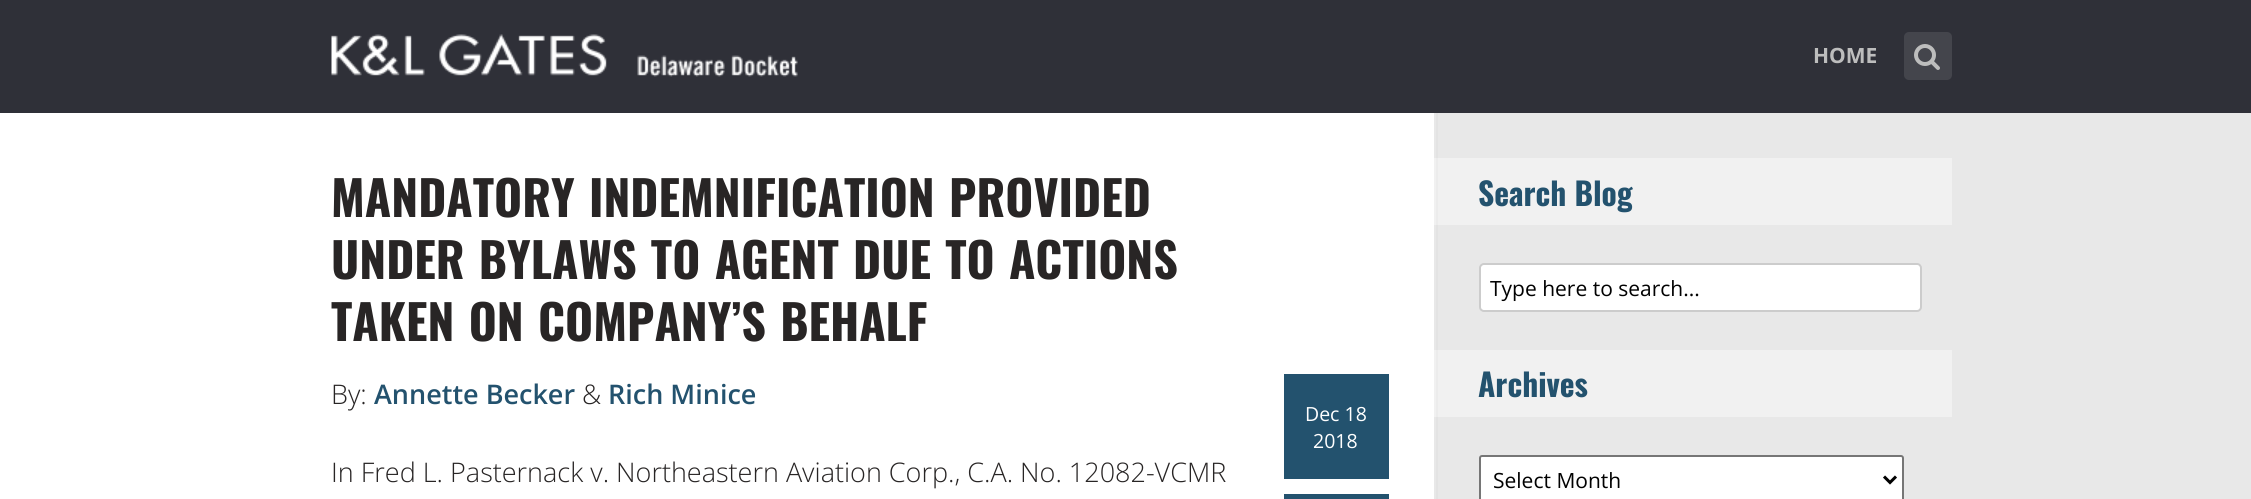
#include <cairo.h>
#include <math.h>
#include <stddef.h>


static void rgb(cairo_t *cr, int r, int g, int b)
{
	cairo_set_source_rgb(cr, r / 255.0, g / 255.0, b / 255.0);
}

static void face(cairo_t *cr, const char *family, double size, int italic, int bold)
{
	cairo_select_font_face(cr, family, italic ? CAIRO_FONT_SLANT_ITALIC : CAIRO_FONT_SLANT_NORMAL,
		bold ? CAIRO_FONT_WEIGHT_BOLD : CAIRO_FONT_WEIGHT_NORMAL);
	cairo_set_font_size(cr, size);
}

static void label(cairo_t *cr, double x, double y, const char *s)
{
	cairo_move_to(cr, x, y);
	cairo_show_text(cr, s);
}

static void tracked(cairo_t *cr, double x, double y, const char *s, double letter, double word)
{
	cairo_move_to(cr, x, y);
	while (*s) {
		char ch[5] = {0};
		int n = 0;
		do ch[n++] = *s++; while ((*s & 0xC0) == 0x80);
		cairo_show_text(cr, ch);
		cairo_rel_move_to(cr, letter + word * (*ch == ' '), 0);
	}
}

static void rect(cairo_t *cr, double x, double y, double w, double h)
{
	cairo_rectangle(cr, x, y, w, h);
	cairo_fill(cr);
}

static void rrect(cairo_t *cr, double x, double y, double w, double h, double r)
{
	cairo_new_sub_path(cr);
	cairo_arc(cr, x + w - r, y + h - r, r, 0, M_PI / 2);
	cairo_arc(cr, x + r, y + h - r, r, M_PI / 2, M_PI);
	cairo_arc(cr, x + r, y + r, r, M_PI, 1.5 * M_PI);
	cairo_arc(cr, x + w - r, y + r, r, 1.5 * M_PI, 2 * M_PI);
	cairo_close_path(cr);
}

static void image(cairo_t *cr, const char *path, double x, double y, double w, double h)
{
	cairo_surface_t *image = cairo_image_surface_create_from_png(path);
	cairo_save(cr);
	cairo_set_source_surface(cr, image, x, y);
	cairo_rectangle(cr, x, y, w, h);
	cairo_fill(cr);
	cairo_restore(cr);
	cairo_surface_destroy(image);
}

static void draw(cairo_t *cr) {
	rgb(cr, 255, 255, 255);
	cairo_paint(cr);
	rgb(cr, 47, 48, 56);
	rect(cr, 0, 0, 2251, 113);
	image(cr, "image0.png", 331, 34, 467, 43);
	face(cr, "Open Sans", 21, 0, 1);
	rgb(cr, 189, 189, 189);
	label(cr, 1813, 63, "HOME");
	rgb(cr, 68, 69, 76);
	rrect(cr, 1904, 32, 48, 48, 5);
	cairo_fill(cr);
	image(cr, "image1.png", 1914, 44, 26, 26);
	rgb(cr, 232, 232, 232);
	rect(cr, 1434, 113, 817, 386);
	rgb(cr, 227, 227, 227);
	rect(cr, 1436, 113, 2, 386);
	face(cr, "Oswald", 48, 0, 1);
	rgb(cr, 40, 37, 37);
	tracked(cr, 331, 217, "MANDATORY INDEMNIFICATION PROVIDED", 0, 2);
	tracked(cr, 331, 279, "UNDER BYLAWS TO AGENT DUE TO ACTIONS", 0, 2);
	tracked(cr, 331, 341, "TAKEN ON COMPANY’S BEHALF", 0, 2);
	face(cr, "Open Sans Light", 27, 0, 0);
	label(cr, 331, 404, "By:");
	face(cr, "Open Sans SemiBold", 27, 0, 0);
	rgb(cr, 35, 82, 110);
	label(cr, 374, 404, "Annette Becker");
	face(cr, "Open Sans Light", 27, 0, 0);
	rgb(cr, 40, 37, 37);
	label(cr, 582, 404, "&");
	face(cr, "Open Sans SemiBold", 27, 0, 0);
	rgb(cr, 35, 82, 110);
	label(cr, 608, 404, "Rich Minice");
	face(cr, "Open Sans Light", 27, 0, 0);
	rgb(cr, 40, 37, 37);
	label(cr, 331, 482, "In Fred L. Pasternack v. Northeastern Aviation Corp., C.A. No. 12082-VCMR");
	rgb(cr, 35, 82, 110);
	rect(cr, 1284, 374, 105, 105);
	face(cr, "Open Sans", 19.5, 0, 0);
	rgb(cr, 255, 255, 255);
	label(cr, 1305, 421, "Dec 18");
	label(cr, 1313, 448, "2018");
	rgb(cr, 35, 82, 110);
	rect(cr, 1284, 494, 105, 5);
	rgb(cr, 241, 241, 241);
	rect(cr, 1434, 158, 518, 67);
	rgb(cr, 236, 236, 236);
	rect(cr, 1436, 158, 2, 67);
	face(cr, "Oswald", 31.5, 0, 1);
	rgb(cr, 35, 82, 110);
	label(cr, 1478, 206, "Search Blog");
	rgb(cr, 255, 255, 255);
	rrect(cr, 1480, 264, 441, 47, 4);
	cairo_fill_preserve(cr);
	rgb(cr, 204, 204, 204);
	cairo_stroke(cr);
	face(cr, "Open Sans", 21, 0, 0);
	rgb(cr, 1, 1, 1);
	label(cr, 1490, 296, "Type here to search...");
	rgb(cr, 241, 241, 241);
	rect(cr, 1434, 350, 518, 67);
	rgb(cr, 236, 236, 236);
	rect(cr, 1436, 350, 2, 67);
	face(cr, "Oswald", 31.5, 0, 1);
	rgb(cr, 35, 82, 110);
	label(cr, 1478, 397, "Archives");
	rgb(cr, 255, 255, 255);
	rrect(cr, 1480, 456, 423, 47, 2);
	cairo_fill_preserve(cr);
	rgb(cr, 118, 118, 118);
	cairo_stroke(cr);
	cairo_new_path(cr);
	cairo_move_to(cr, 1884, 476.5);
	cairo_line_to(cr, 1890, 482.5);
	cairo_line_to(cr, 1896, 476.5);
	rgb(cr, 0, 0, 0);
	cairo_set_line_width(cr, 3);
	cairo_stroke(cr);
	face(cr, "Open Sans", 21, 0, 0);
	rgb(cr, 1, 1, 1);
	label(cr, 1493, 488, "Select Month");
}

int main(void) {
	cairo_surface_t *surface = cairo_image_surface_create(CAIRO_FORMAT_RGB24, 2251, 499);
	cairo_t *cr = cairo_create(surface);
	cairo_font_options_t *options = cairo_font_options_create();
	cairo_font_options_set_hint_metrics(options, CAIRO_HINT_METRICS_OFF);
	cairo_font_options_set_hint_style(options, CAIRO_HINT_STYLE_NONE);
	cairo_set_font_options(cr, options);
	cairo_set_miter_limit(cr, 4);
	draw(cr);
	cairo_surface_write_to_png(surface, "render.png");
	cairo_font_options_destroy(options);
	cairo_destroy(cr);
	cairo_surface_destroy(surface);
	return 0;
}
